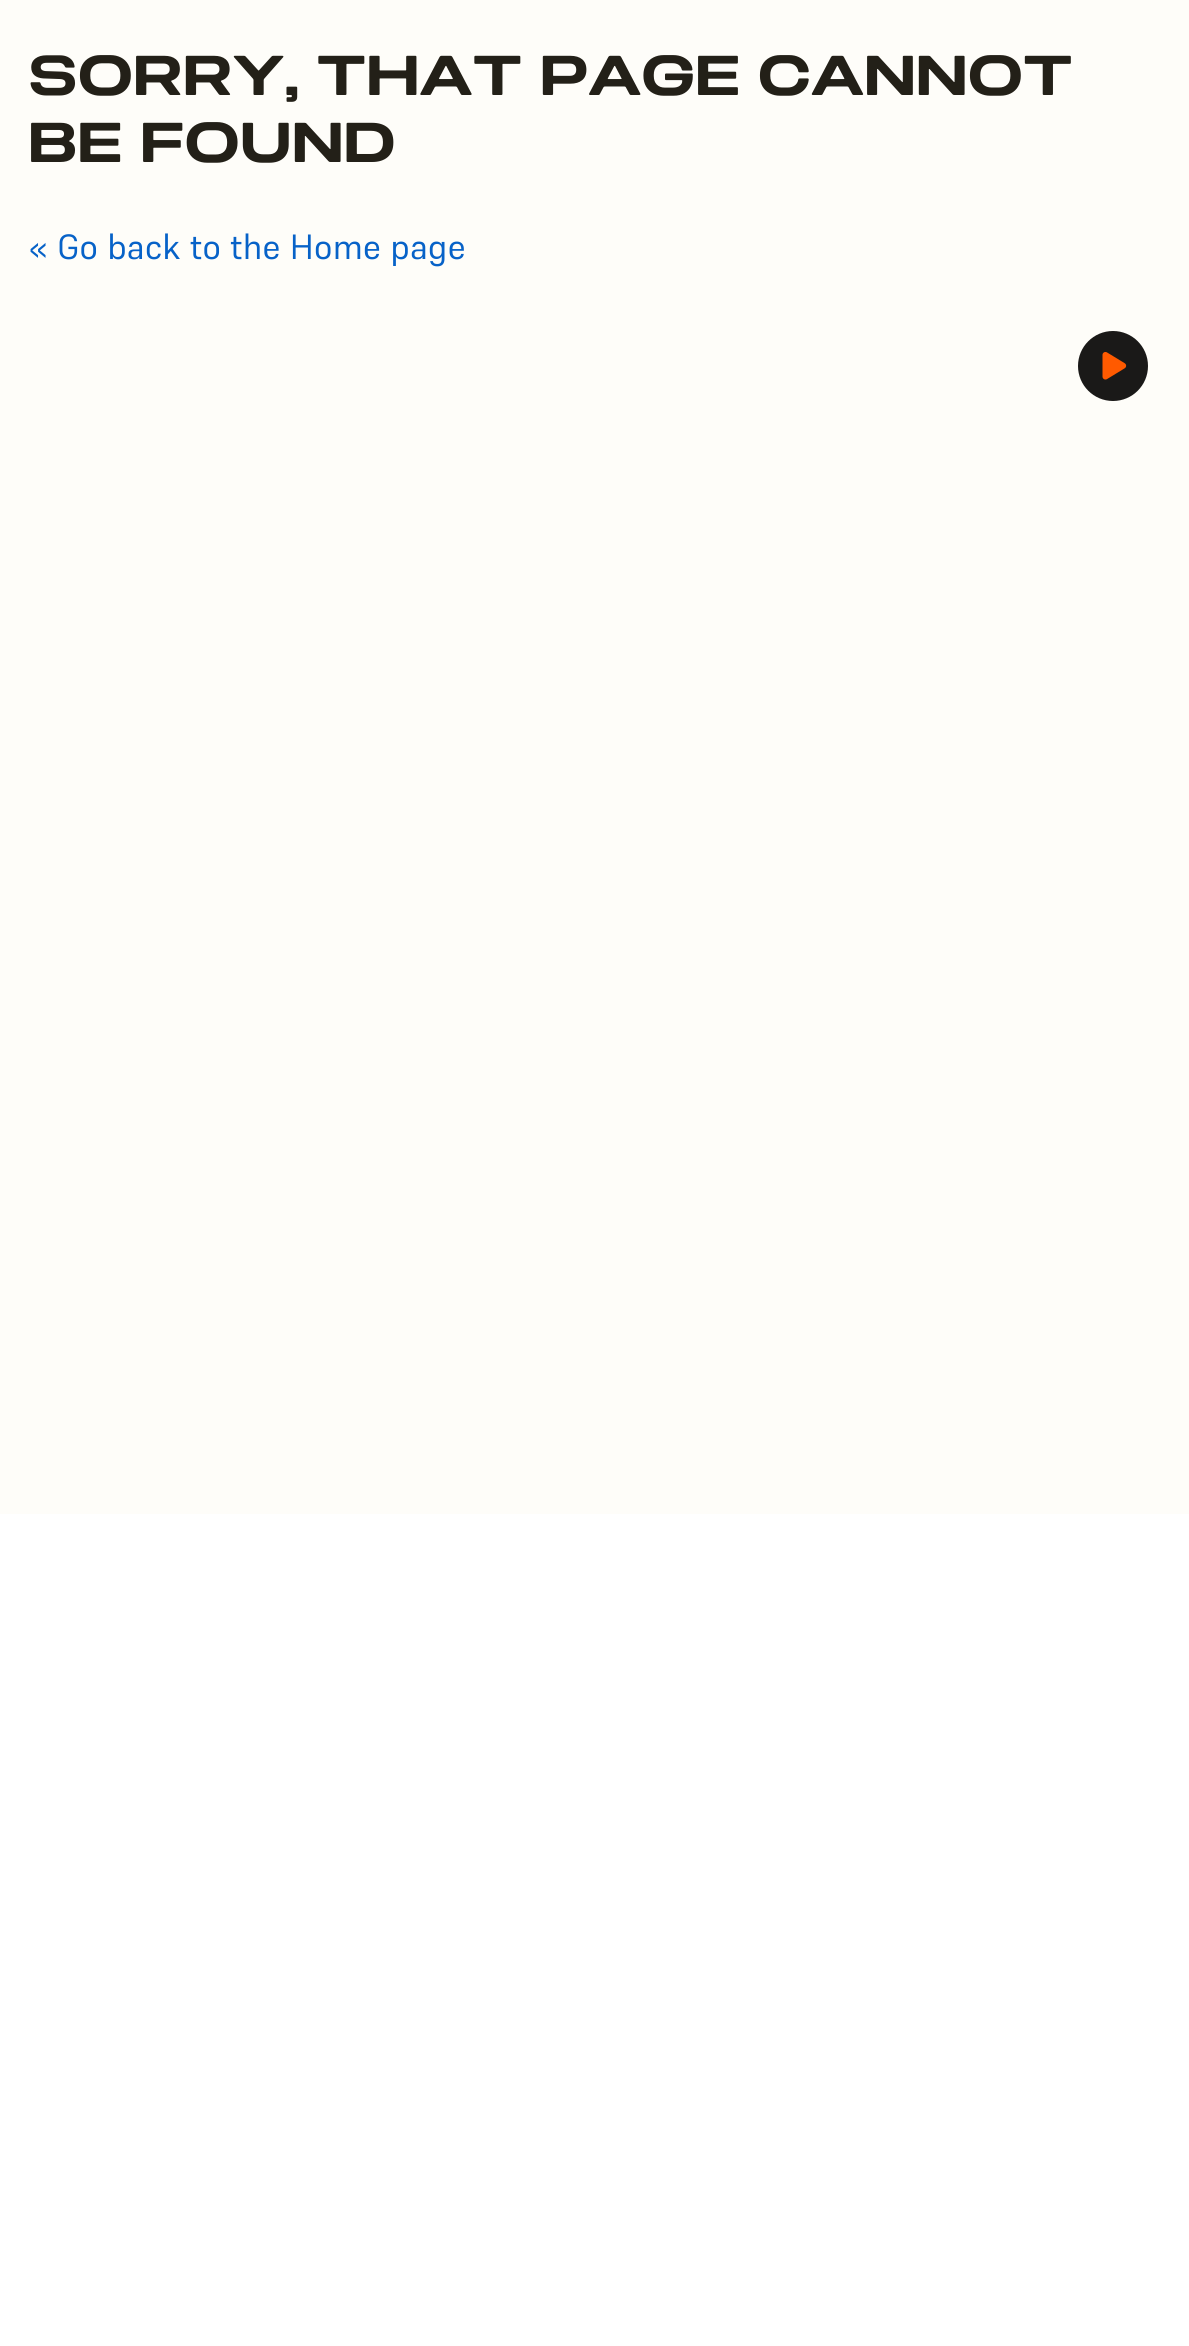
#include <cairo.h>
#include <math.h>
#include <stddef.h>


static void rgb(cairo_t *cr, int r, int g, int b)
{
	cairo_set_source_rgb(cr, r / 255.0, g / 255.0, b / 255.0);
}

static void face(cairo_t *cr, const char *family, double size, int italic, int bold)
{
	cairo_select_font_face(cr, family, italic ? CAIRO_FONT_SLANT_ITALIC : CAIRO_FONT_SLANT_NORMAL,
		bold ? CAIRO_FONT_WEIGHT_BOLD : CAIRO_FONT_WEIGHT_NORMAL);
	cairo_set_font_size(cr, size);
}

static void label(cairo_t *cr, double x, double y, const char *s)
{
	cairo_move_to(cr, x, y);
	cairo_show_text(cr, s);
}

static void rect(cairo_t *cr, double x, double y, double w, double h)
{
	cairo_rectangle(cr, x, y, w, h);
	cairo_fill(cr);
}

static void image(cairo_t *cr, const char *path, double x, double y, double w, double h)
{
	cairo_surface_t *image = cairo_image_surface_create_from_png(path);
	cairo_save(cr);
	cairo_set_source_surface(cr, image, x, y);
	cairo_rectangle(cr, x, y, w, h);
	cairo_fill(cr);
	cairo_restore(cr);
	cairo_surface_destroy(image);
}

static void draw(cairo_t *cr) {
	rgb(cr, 255, 255, 255);
	cairo_paint(cr);
	rgb(cr, 254, 253, 249);
	rect(cr, 0, 0, 1189, 1514);
	face(cr, "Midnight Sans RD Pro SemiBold", 56, 0, 0);
	rgb(cr, 35, 32, 24);
	label(cr, 28, 95, "SORRY, THAT PAGE CANNOT");
	label(cr, 28, 162, "BE FOUND");
	face(cr, "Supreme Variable", 35, 0, 0);
	rgb(cr, 7, 98, 200);
	label(cr, 28, 259, "« Go back to the Home page");
	rgb(cr, 26, 25, 24);
	cairo_new_path(cr);
	cairo_arc(cr, 1113, 366, 35, 0, 2 * M_PI);
	cairo_fill(cr);
	image(cr, "image0.png", 1102, 352, 25, 28);
}

int main(void) {
	cairo_surface_t *surface = cairo_image_surface_create(CAIRO_FORMAT_RGB24, 1189, 2346);
	cairo_t *cr = cairo_create(surface);
	cairo_font_options_t *options = cairo_font_options_create();
	cairo_font_options_set_hint_metrics(options, CAIRO_HINT_METRICS_OFF);
	cairo_font_options_set_hint_style(options, CAIRO_HINT_STYLE_NONE);
	cairo_set_font_options(cr, options);
	cairo_set_miter_limit(cr, 4);
	draw(cr);
	cairo_surface_write_to_png(surface, "render.png");
	cairo_font_options_destroy(options);
	cairo_destroy(cr);
	cairo_surface_destroy(surface);
	return 0;
}
